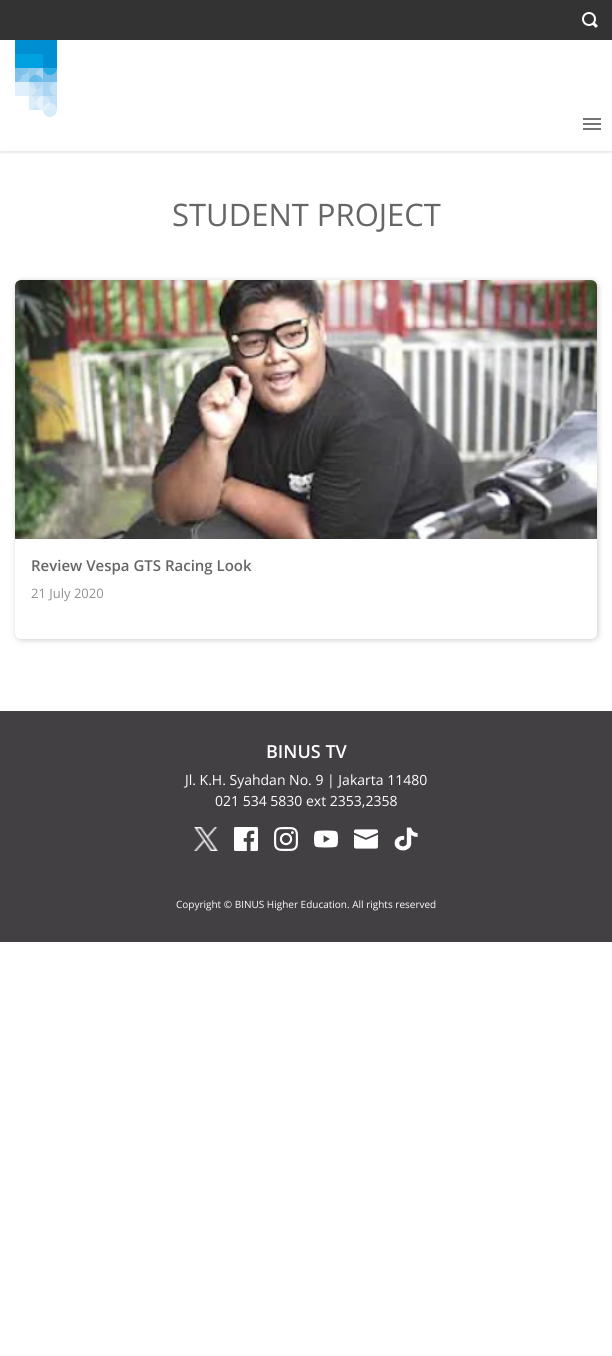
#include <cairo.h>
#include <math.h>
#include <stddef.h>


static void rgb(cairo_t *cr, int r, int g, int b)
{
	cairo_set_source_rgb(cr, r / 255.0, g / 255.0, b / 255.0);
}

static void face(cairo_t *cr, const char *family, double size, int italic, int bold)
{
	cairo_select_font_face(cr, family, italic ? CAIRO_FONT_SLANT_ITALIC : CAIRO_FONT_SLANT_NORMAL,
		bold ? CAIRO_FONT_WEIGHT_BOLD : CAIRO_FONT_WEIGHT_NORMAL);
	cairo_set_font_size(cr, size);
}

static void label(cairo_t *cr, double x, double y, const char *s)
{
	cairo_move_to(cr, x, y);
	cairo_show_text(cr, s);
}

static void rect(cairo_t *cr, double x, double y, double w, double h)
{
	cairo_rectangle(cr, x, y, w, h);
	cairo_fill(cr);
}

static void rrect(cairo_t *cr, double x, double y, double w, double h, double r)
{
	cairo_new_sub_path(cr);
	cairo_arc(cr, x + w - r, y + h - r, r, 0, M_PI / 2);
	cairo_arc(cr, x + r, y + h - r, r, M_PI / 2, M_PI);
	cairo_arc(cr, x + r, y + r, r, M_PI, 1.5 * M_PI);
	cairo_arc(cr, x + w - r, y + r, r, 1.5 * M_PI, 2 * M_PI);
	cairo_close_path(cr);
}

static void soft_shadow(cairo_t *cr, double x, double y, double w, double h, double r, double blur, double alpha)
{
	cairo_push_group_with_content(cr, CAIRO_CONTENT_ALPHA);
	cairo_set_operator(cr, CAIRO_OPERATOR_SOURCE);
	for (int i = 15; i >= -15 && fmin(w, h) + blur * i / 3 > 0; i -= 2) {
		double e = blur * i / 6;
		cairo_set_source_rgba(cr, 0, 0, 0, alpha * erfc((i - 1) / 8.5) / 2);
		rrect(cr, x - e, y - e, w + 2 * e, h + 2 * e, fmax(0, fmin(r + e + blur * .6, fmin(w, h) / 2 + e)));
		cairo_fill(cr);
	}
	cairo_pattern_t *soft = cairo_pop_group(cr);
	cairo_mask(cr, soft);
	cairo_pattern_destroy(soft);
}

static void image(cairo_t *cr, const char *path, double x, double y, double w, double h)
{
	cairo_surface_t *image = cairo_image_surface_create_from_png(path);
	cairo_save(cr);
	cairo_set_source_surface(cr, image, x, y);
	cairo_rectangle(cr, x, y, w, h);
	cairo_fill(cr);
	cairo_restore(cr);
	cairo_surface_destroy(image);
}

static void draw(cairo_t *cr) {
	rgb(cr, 255, 255, 255);
	cairo_paint(cr);
	cairo_save(cr);
	cairo_rectangle(cr, 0, 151, 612, 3);
	cairo_clip(cr);
	rgb(cr, 0, 0, 0);
	soft_shadow(cr, 0, 40, 612, 111, 0, 2.5, 0.2);
	cairo_restore(cr);
	rgb(cr, 51, 51, 51);
	rect(cr, 0, 0, 612, 40);
	image(cr, "image0.png", 582, 12, 16, 16);
	image(cr, "image1.png", 15, 40, 42, 77);
	image(cr, "image2.png", 583, 118, 18, 12);
	face(cr, "Open Sans", 31, 0, 0);
	rgb(cr, 102, 102, 102);
	label(cr, 172, 226, "STUDENT PROJECT");
	rgb(cr, 0, 0, 0);
	soft_shadow(cr, 16, 281, 582, 359, 6, 3, 0.2);
	rgb(cr, 255, 255, 255);
	rrect(cr, 15, 280, 582, 359, 6);
	cairo_fill(cr);
	image(cr, "image3.png", 15, 280, 582, 259);
	face(cr, "Open Sans SemiBold", 15, 0, 0);
	rgb(cr, 102, 102, 102);
	label(cr, 31, 571, "Review Vespa GTS Racing Look");
	face(cr, "Open Sans", 13, 0, 0);
	rgb(cr, 145, 145, 145);
	label(cr, 31, 598, "21 July 2020");
	rgb(cr, 66, 64, 67);
	rect(cr, 0, 711, 612, 231);
	face(cr, "Open Sans SemiBold", 18, 0, 0);
	rgb(cr, 255, 255, 255);
	label(cr, 266, 758, "BINUS TV");
	face(cr, "Open Sans", 14, 0, 0);
	label(cr, 185, 785, "Jl. K.H. Syahdan No. 9 | Jakarta 11480");
	label(cr, 215, 806, "021 534 5830 ext 2353,2358");
	image(cr, "image4.png", 194, 827, 24, 24);
	image(cr, "image5.png", 234, 827, 24, 24);
	image(cr, "image6.png", 274, 827, 24, 24);
	image(cr, "image7.png", 314, 830, 24, 18);
	image(cr, "image8.png", 354, 829, 24, 20);
	image(cr, "image9.png", 394, 827, 24, 24);
	face(cr, "Open Sans", 10, 0, 0);
	label(cr, 176, 908, "Copyright © BINUS Higher Education. All rights reserved");
}

int main(void) {
	cairo_surface_t *surface = cairo_image_surface_create(CAIRO_FORMAT_RGB24, 612, 1356);
	cairo_t *cr = cairo_create(surface);
	cairo_font_options_t *options = cairo_font_options_create();
	cairo_font_options_set_hint_metrics(options, CAIRO_HINT_METRICS_OFF);
	cairo_font_options_set_hint_style(options, CAIRO_HINT_STYLE_NONE);
	cairo_set_font_options(cr, options);
	cairo_set_miter_limit(cr, 4);
	draw(cr);
	cairo_surface_write_to_png(surface, "render.png");
	cairo_font_options_destroy(options);
	cairo_destroy(cr);
	cairo_surface_destroy(surface);
	return 0;
}
